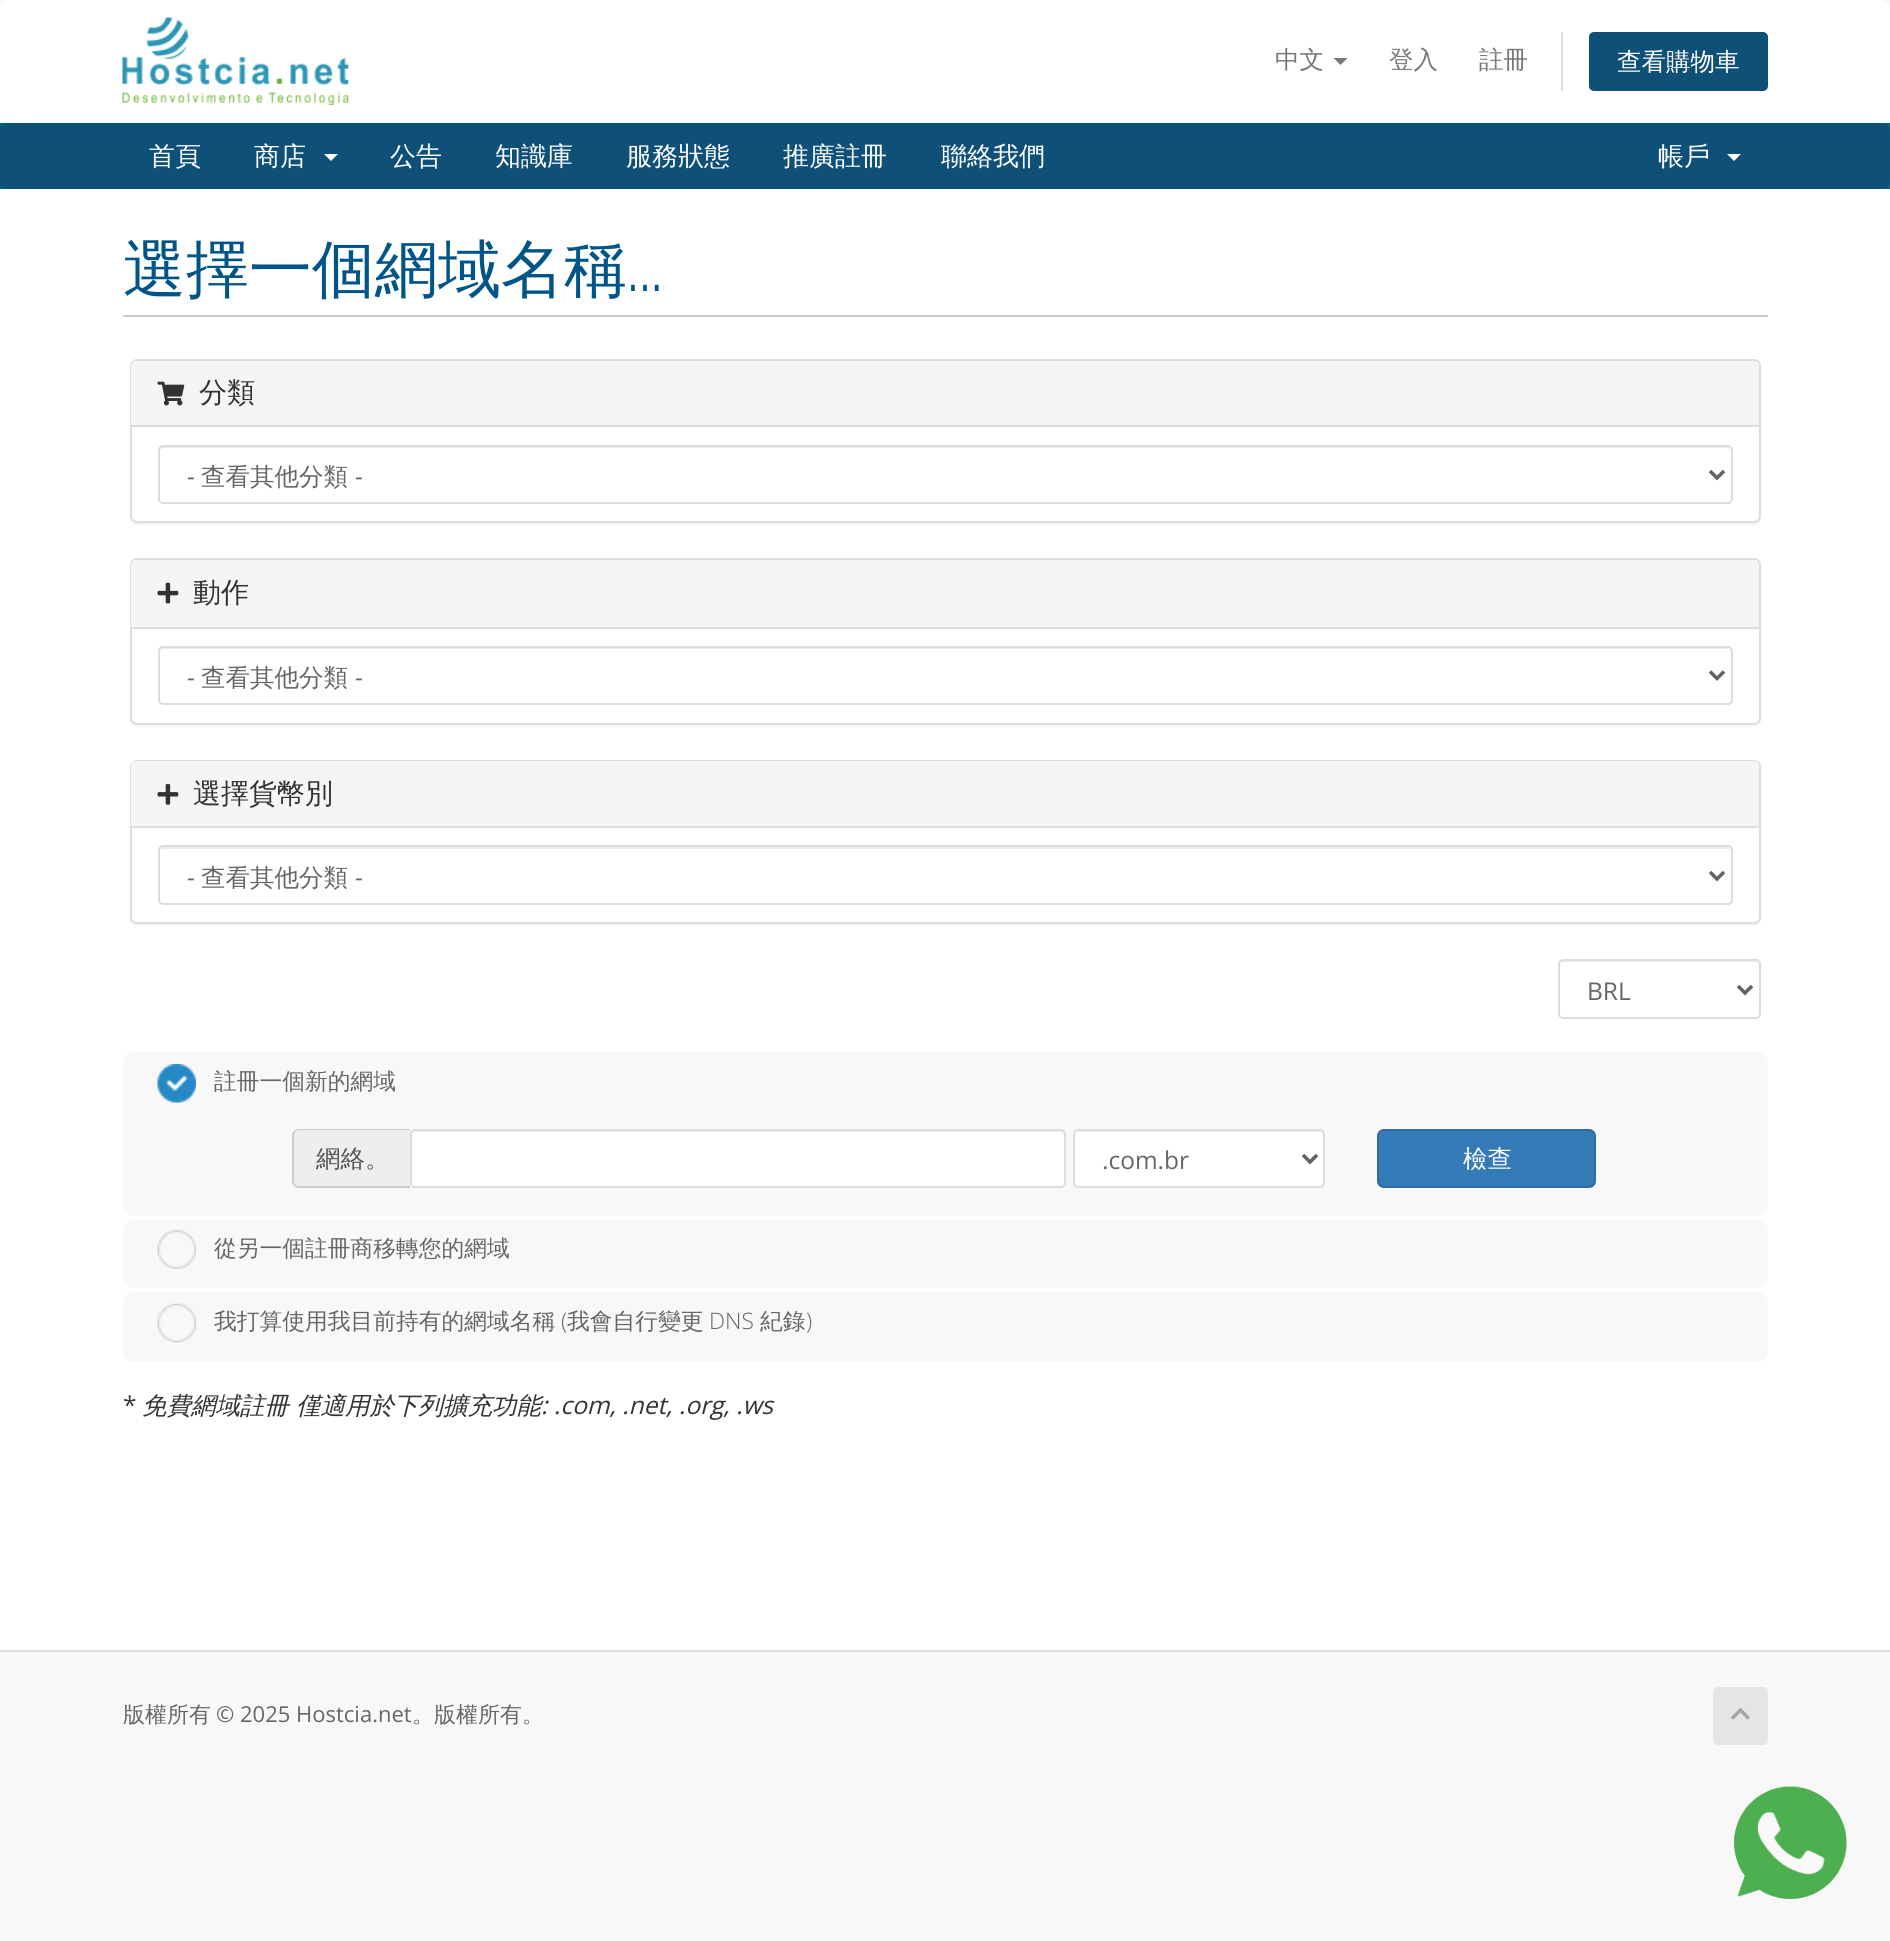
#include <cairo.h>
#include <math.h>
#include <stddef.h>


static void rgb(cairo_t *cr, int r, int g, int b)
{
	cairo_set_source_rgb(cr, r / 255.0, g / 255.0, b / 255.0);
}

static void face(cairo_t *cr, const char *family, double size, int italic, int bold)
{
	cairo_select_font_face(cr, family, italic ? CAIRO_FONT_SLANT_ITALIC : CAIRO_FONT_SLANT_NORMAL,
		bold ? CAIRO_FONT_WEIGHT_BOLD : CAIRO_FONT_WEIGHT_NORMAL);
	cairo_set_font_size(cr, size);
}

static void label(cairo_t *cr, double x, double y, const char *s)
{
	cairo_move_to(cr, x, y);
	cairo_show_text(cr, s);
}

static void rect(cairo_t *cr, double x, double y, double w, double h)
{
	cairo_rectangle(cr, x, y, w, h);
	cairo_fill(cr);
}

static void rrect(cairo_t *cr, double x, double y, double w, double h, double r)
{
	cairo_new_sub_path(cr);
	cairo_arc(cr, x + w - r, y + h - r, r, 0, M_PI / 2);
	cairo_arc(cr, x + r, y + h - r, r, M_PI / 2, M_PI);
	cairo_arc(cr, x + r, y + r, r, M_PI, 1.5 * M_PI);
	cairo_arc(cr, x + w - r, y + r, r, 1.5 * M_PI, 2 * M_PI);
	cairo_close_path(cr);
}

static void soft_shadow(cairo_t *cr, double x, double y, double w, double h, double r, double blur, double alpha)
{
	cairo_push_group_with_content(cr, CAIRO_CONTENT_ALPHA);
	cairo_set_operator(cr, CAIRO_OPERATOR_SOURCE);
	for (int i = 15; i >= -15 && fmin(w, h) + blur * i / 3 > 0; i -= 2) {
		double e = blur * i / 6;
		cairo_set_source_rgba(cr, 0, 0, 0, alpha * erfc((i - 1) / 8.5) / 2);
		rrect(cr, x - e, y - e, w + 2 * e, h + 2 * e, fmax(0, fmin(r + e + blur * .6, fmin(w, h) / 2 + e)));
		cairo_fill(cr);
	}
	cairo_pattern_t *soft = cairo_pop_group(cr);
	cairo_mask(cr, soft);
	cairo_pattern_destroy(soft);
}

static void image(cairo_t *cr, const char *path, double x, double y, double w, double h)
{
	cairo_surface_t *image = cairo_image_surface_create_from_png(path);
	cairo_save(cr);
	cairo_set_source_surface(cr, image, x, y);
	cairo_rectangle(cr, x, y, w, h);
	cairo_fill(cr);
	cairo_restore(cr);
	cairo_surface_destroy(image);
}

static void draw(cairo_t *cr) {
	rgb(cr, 248, 248, 248);
	cairo_paint(cr);
	rgb(cr, 255, 255, 255);
	cairo_new_path(cr);
	cairo_move_to(cr, 9, 0);
	cairo_line_to(cr, 1881, 0);
	cairo_curve_to(cr, 1886, 0, 1890, 4, 1890, 9);
	cairo_line_to(cr, 1890, 123);
	cairo_line_to(cr, 0, 123);
	cairo_line_to(cr, 0, 9);
	cairo_curve_to(cr, 0, 4, 4, 0, 9, 0);
	cairo_close_path(cr);
	cairo_fill(cr);
	image(cr, "image0.png", 122, 17, 227, 88);
	face(cr, "WenQuanYi Zen Hei Medium", 24.5, 0, 0);
	rgb(cr, 119, 119, 119);
	label(cr, 1275, 68, "中文");
	cairo_new_path(cr);
	cairo_move_to(cr, 1333.5, 58);
	cairo_line_to(cr, 1347.5, 58);
	cairo_line_to(cr, 1340.5, 65);
	cairo_close_path(cr);
	cairo_fill(cr);
	label(cr, 1389, 68, "登入");
	label(cr, 1479, 68, "註冊");
	rgb(cr, 221, 221, 221);
	rect(cr, 1561, 32, 2, 59);
	rgb(cr, 14, 80, 119);
	rrect(cr, 1589, 32, 179, 59, 5);
	cairo_fill(cr);
	rgb(cr, 255, 255, 255);
	label(cr, 1617, 70, "查看購物車");
	rgb(cr, 0, 102, 135);
	rect(cr, 0, 123, 1890, 66);
	rgb(cr, 14, 80, 119);
	rrect(cr, 0, 123, 1890, 66, 7);
	cairo_fill(cr);
	face(cr, "WenQuanYi Zen Hei Medium", 26, 0, 0);
	rgb(cr, 255, 255, 255);
	label(cr, 149, 165, "首頁");
	label(cr, 254, 165, "商店");
	cairo_new_path(cr);
	cairo_move_to(cr, 324, 154);
	cairo_line_to(cr, 338, 154);
	cairo_line_to(cr, 331, 161);
	cairo_close_path(cr);
	cairo_fill(cr);
	label(cr, 390, 165, "公告");
	label(cr, 495, 165, "知識庫");
	label(cr, 626, 165, "服務狀態");
	label(cr, 783, 165, "推廣註冊");
	label(cr, 941, 165, "聯絡我們");
	label(cr, 1658, 165, "帳戶");
	cairo_new_path(cr);
	cairo_move_to(cr, 1727, 154);
	cairo_line_to(cr, 1741, 154);
	cairo_line_to(cr, 1734, 161);
	cairo_close_path(cr);
	cairo_fill(cr);
	rect(cr, 0, 189, 1890, 1461);
	rgb(cr, 204, 204, 204);
	rect(cr, 123, 315, 1645, 2);
	face(cr, "WenQuanYi Zen Hei Medium", 63, 0, 0);
	rgb(cr, 0, 85, 136);
	label(cr, 123, 291, "選擇一個網域名稱");
	face(cr, "Raleway", 63, 0, 0);
	label(cr, 627, 291, "...");
	rgb(cr, 0, 0, 0);
	soft_shadow(cr, 130, 361, 1631, 164, 7, 1, 0.05);
	rgb(cr, 255, 255, 255);
	rrect(cr, 131, 360, 1629, 162, 6);
	cairo_fill_preserve(cr);
	rgb(cr, 221, 221, 221);
	cairo_stroke(cr);
	rgb(cr, 245, 245, 245);
	cairo_new_path(cr);
	cairo_move_to(cr, 136, 361);
	cairo_line_to(cr, 1754, 361);
	cairo_curve_to(cr, 1757, 361, 1759, 363, 1759, 366);
	cairo_line_to(cr, 1759, 427);
	cairo_line_to(cr, 131, 427);
	cairo_line_to(cr, 131, 366);
	cairo_curve_to(cr, 131, 363, 133, 361, 136, 361);
	cairo_close_path(cr);
	cairo_fill(cr);
	rgb(cr, 221, 221, 221);
	rect(cr, 131, 425, 1628, 2);
	image(cr, "image1.png", 157, 381, 28, 25);
	face(cr, "WenQuanYi Zen Hei Medium", 28, 0, 0);
	rgb(cr, 51, 51, 51);
	label(cr, 199, 402, "分類");
	rgb(cr, 236, 236, 236);
	cairo_new_path(cr);
	cairo_move_to(cr, 163, 448);
	cairo_line_to(cr, 1727, 448);
	cairo_curve_to(cr, 1729, 448, 1731, 450, 1731, 452);
	cairo_curve_to(cr, 1731, 449, 1731, 446, 1727, 446);
	cairo_line_to(cr, 163, 446);
	cairo_curve_to(cr, 159, 446, 159, 449, 159, 452);
	cairo_curve_to(cr, 159, 450, 161, 448, 163, 448);
	cairo_close_path(cr);
	cairo_fill(cr);
	rrect(cr, 159, 446, 1573, 57, 4);
	rgb(cr, 221, 221, 221);
	cairo_stroke(cr);
	cairo_new_path(cr);
	cairo_move_to(cr, 1710, 471);
	cairo_line_to(cr, 1717, 478);
	cairo_line_to(cr, 1724, 471);
	rgb(cr, 98, 98, 98);
	cairo_set_line_width(cr, 3.5);
	cairo_stroke(cr);
	face(cr, "Open Sans", 24.5, 0, 0);
	rgb(cr, 102, 102, 102);
	label(cr, 187, 485, "-");
	face(cr, "WenQuanYi Zen Hei Medium", 24.5, 0, 0);
	label(cr, 201, 485, "查看其他分類");
	face(cr, "Open Sans", 24.5, 0, 0);
	label(cr, 355, 485, "-");
	rgb(cr, 0, 0, 0);
	soft_shadow(cr, 130, 560, 1631, 166, 7, 1, 0.05);
	rgb(cr, 255, 255, 255);
	rrect(cr, 131, 559, 1629, 165, 6);
	cairo_fill_preserve(cr);
	rgb(cr, 221, 221, 221);
	cairo_set_line_width(cr, 2);
	cairo_stroke(cr);
	rgb(cr, 245, 245, 245);
	cairo_new_path(cr);
	cairo_move_to(cr, 136, 560);
	cairo_line_to(cr, 1754, 560);
	cairo_curve_to(cr, 1757, 560, 1759, 562, 1759, 565);
	cairo_line_to(cr, 1759, 628);
	cairo_line_to(cr, 131, 628);
	cairo_line_to(cr, 131, 565);
	cairo_curve_to(cr, 131, 562, 133, 560, 136, 560);
	cairo_close_path(cr);
	cairo_fill(cr);
	rgb(cr, 221, 221, 221);
	rect(cr, 131, 627, 1628, 2);
	image(cr, "image2.png", 157, 582, 22, 22);
	face(cr, "WenQuanYi Zen Hei Medium", 28, 0, 0);
	rgb(cr, 51, 51, 51);
	label(cr, 193, 602, "動作");
	rgb(cr, 236, 236, 236);
	cairo_new_path(cr);
	cairo_move_to(cr, 163, 649);
	cairo_line_to(cr, 1727, 649);
	cairo_curve_to(cr, 1729, 649, 1731, 651, 1731, 653);
	cairo_line_to(cr, 1731, 652);
	cairo_curve_to(cr, 1731, 650, 1729, 648, 1727, 648);
	cairo_line_to(cr, 163, 648);
	cairo_curve_to(cr, 161, 648, 159, 650, 159, 652);
	cairo_line_to(cr, 159, 653);
	cairo_curve_to(cr, 159, 651, 161, 649, 163, 649);
	cairo_close_path(cr);
	cairo_fill(cr);
	rrect(cr, 159, 647, 1573, 57, 4);
	rgb(cr, 221, 221, 221);
	cairo_stroke(cr);
	cairo_new_path(cr);
	cairo_move_to(cr, 1710, 671.5);
	cairo_line_to(cr, 1717, 678.5);
	cairo_line_to(cr, 1724, 671.5);
	rgb(cr, 98, 98, 98);
	cairo_set_line_width(cr, 3.5);
	cairo_stroke(cr);
	face(cr, "Open Sans", 24.5, 0, 0);
	rgb(cr, 102, 102, 102);
	label(cr, 187, 686, "-");
	face(cr, "WenQuanYi Zen Hei Medium", 24.5, 0, 0);
	label(cr, 201, 686, "查看其他分類");
	face(cr, "Open Sans", 24.5, 0, 0);
	label(cr, 355, 686, "-");
	rgb(cr, 0, 0, 0);
	soft_shadow(cr, 130, 761, 1631, 165, 7, 1, 0.05);
	rgb(cr, 255, 255, 255);
	rrect(cr, 131, 761, 1629, 162, 6);
	cairo_fill_preserve(cr);
	rgb(cr, 221, 221, 221);
	cairo_set_line_width(cr, 2);
	cairo_stroke(cr);
	rgb(cr, 245, 245, 245);
	cairo_new_path(cr);
	cairo_move_to(cr, 136, 761);
	cairo_line_to(cr, 1754, 761);
	cairo_curve_to(cr, 1757, 761, 1759, 763, 1759, 766);
	cairo_line_to(cr, 1759, 828);
	cairo_line_to(cr, 131, 828);
	cairo_line_to(cr, 131, 766);
	cairo_curve_to(cr, 131, 763, 133, 761, 136, 761);
	cairo_close_path(cr);
	cairo_fill(cr);
	rgb(cr, 221, 221, 221);
	rect(cr, 131, 826, 1628, 2);
	image(cr, "image3.png", 157, 783, 22, 22);
	face(cr, "WenQuanYi Zen Hei Medium", 28, 0, 0);
	rgb(cr, 51, 51, 51);
	label(cr, 193, 803, "選擇貨幣別");
	rgb(cr, 236, 236, 236);
	cairo_new_path(cr);
	cairo_move_to(cr, 163, 849);
	cairo_line_to(cr, 1727, 849);
	cairo_curve_to(cr, 1729, 849, 1731, 850, 1731, 852);
	cairo_line_to(cr, 1731, 851);
	cairo_curve_to(cr, 1731, 849, 1729, 847, 1727, 847);
	cairo_line_to(cr, 163, 847);
	cairo_curve_to(cr, 161, 847, 159, 849, 159, 851);
	cairo_line_to(cr, 159, 852);
	cairo_curve_to(cr, 159, 850, 161, 849, 163, 849);
	cairo_close_path(cr);
	cairo_fill(cr);
	rrect(cr, 159, 846, 1573, 58, 4);
	rgb(cr, 221, 221, 221);
	cairo_stroke(cr);
	cairo_new_path(cr);
	cairo_move_to(cr, 1710, 872);
	cairo_line_to(cr, 1717, 879);
	cairo_line_to(cr, 1724, 872);
	rgb(cr, 98, 98, 98);
	cairo_set_line_width(cr, 3.5);
	cairo_stroke(cr);
	face(cr, "Open Sans", 24.5, 0, 0);
	rgb(cr, 102, 102, 102);
	label(cr, 187, 886, "-");
	face(cr, "WenQuanYi Zen Hei Medium", 24.5, 0, 0);
	label(cr, 201, 886, "查看其他分類");
	face(cr, "Open Sans", 24.5, 0, 0);
	label(cr, 355, 886, "-");
	rgb(cr, 236, 236, 236);
	cairo_new_path(cr);
	cairo_move_to(cr, 1563, 962);
	cairo_line_to(cr, 1755, 962);
	cairo_curve_to(cr, 1757, 962, 1759, 964, 1759, 966);
	cairo_line_to(cr, 1759, 965);
	cairo_curve_to(cr, 1759, 963, 1757, 961, 1755, 961);
	cairo_line_to(cr, 1563, 961);
	cairo_curve_to(cr, 1561, 961, 1559, 963, 1559, 965);
	cairo_line_to(cr, 1559, 966);
	cairo_curve_to(cr, 1559, 964, 1561, 962, 1563, 962);
	cairo_close_path(cr);
	cairo_fill(cr);
	rrect(cr, 1559, 960, 201, 58, 4);
	rgb(cr, 221, 221, 221);
	cairo_set_line_width(cr, 2);
	cairo_stroke(cr);
	cairo_new_path(cr);
	cairo_move_to(cr, 1738, 986);
	cairo_line_to(cr, 1745, 993);
	cairo_line_to(cr, 1752, 986);
	rgb(cr, 98, 98, 98);
	cairo_set_line_width(cr, 3.5);
	cairo_stroke(cr);
	rgb(cr, 102, 102, 102);
	label(cr, 1587, 1000, "BRL");
	rgb(cr, 248, 248, 248);
	rrect(cr, 123, 1052, 1645, 164, 11);
	cairo_fill(cr);
	image(cr, "image4.png", 157, 1064, 39, 39);
	face(cr, "WenQuanYi Zen Hei Medium", 22.75, 0, 0);
	rgb(cr, 102, 102, 102);
	label(cr, 214, 1089, "註冊一個新的網域");
	rgb(cr, 238, 238, 238);
	cairo_new_path(cr);
	cairo_move_to(cr, 299, 1129);
	cairo_line_to(cr, 410, 1129);
	cairo_line_to(cr, 410, 1188);
	cairo_line_to(cr, 299, 1188);
	cairo_curve_to(cr, 295, 1188, 292, 1185, 292, 1181);
	cairo_line_to(cr, 292, 1136);
	cairo_curve_to(cr, 292, 1132, 295, 1129, 299, 1129);
	cairo_close_path(cr);
	cairo_fill(cr);
	rgb(cr, 204, 204, 204);
	cairo_set_fill_rule(cr, CAIRO_FILL_RULE_EVEN_ODD);
	cairo_new_path(cr);
	cairo_move_to(cr, 299, 1129);
	cairo_line_to(cr, 410, 1129);
	cairo_line_to(cr, 410, 1188);
	cairo_line_to(cr, 299, 1188);
	cairo_curve_to(cr, 295, 1188, 292, 1185, 292, 1181);
	cairo_line_to(cr, 292, 1136);
	cairo_curve_to(cr, 292, 1132, 295, 1129, 299, 1129);
	cairo_close_path(cr);
	cairo_move_to(cr, 299, 1130);
	cairo_line_to(cr, 410, 1130);
	cairo_line_to(cr, 410, 1186);
	cairo_line_to(cr, 299, 1186);
	cairo_curve_to(cr, 296, 1186, 294, 1184, 294, 1181);
	cairo_line_to(cr, 294, 1136);
	cairo_curve_to(cr, 294, 1133, 296, 1130, 299, 1130);
	cairo_close_path(cr);
	cairo_fill(cr);
	face(cr, "WenQuanYi Zen Hei Medium", 24.5, 0, 0);
	rgb(cr, 85, 85, 85);
	label(cr, 316, 1167, "網絡。");
	rgb(cr, 255, 255, 255);
	rrect(cr, 410, 1129, 656, 59, 5);
	cairo_fill(cr);
	rgb(cr, 236, 236, 236);
	cairo_set_fill_rule(cr, CAIRO_FILL_RULE_WINDING);
	cairo_new_path(cr);
	cairo_move_to(cr, 415, 1132);
	cairo_line_to(cr, 1060, 1132);
	cairo_curve_to(cr, 1062, 1132, 1064, 1134, 1064, 1136);
	cairo_curve_to(cr, 1064, 1133, 1063, 1131, 1060, 1131);
	cairo_line_to(cr, 415, 1131);
	cairo_line_to(cr, 412, 1132);
	cairo_line_to(cr, 411, 1133);
	cairo_line_to(cr, 411, 1136);
	cairo_curve_to(cr, 411, 1134, 413, 1132, 415, 1132);
	cairo_close_path(cr);
	cairo_fill(cr);
	rrect(cr, 411, 1130, 654, 57, 4);
	rgb(cr, 221, 221, 221);
	cairo_set_line_width(cr, 2);
	cairo_stroke(cr);
	rgb(cr, 255, 255, 255);
	rrect(cr, 1073, 1129, 252, 59, 5);
	cairo_fill(cr);
	rgb(cr, 236, 236, 236);
	cairo_new_path(cr);
	cairo_move_to(cr, 1078, 1132);
	cairo_line_to(cr, 1320, 1132);
	cairo_curve_to(cr, 1321, 1132, 1323, 1134, 1323, 1136);
	cairo_line_to(cr, 1323, 1135);
	cairo_curve_to(cr, 1323, 1133, 1321, 1131, 1319, 1131);
	cairo_line_to(cr, 1079, 1131);
	cairo_curve_to(cr, 1078, 1131, 1076, 1132, 1076, 1133);
	cairo_close_path(cr);
	cairo_fill(cr);
	rrect(cr, 1074, 1130, 250, 57, 4);
	rgb(cr, 221, 221, 221);
	cairo_stroke(cr);
	cairo_new_path(cr);
	cairo_move_to(cr, 1303, 1155);
	cairo_line_to(cr, 1310, 1162);
	cairo_line_to(cr, 1317, 1155);
	rgb(cr, 98, 98, 98);
	cairo_set_line_width(cr, 3.5);
	cairo_stroke(cr);
	face(cr, "Open Sans", 24.5, 0, 0);
	rgb(cr, 102, 102, 102);
	label(cr, 1102, 1169, ".com.br");
	rgb(cr, 51, 122, 183);
	rrect(cr, 1378, 1130, 217, 57, 6);
	cairo_fill_preserve(cr);
	rgb(cr, 46, 109, 164);
	cairo_set_line_width(cr, 2);
	cairo_stroke(cr);
	face(cr, "WenQuanYi Zen Hei Medium", 24.5, 0, 0);
	rgb(cr, 255, 255, 255);
	label(cr, 1463, 1167, "檢查");
	rgb(cr, 248, 248, 248);
	rrect(cr, 123, 1220, 1645, 68, 11);
	cairo_fill(cr);
	image(cr, "image5.png", 157, 1230, 39, 39);
	face(cr, "WenQuanYi Zen Hei Medium", 22.75, 0, 0);
	rgb(cr, 102, 102, 102);
	label(cr, 214, 1256, "從另一個註冊商移轉您的網域");
	rgb(cr, 248, 248, 248);
	rrect(cr, 123, 1292, 1645, 70, 11);
	cairo_fill(cr);
	image(cr, "image6.png", 157, 1303, 39, 40);
	rgb(cr, 102, 102, 102);
	label(cr, 214, 1329, "我打算使用我目前持有的網域名稱");
	face(cr, "Open Sans Light", 22.75, 0, 0);
	label(cr, 561, 1329, "(");
	face(cr, "WenQuanYi Zen Hei Medium", 22.75, 0, 0);
	label(cr, 567, 1329, "我會自行變更");
	face(cr, "Open Sans Light", 22.75, 0, 0);
	label(cr, 709, 1329, "DNS");
	face(cr, "WenQuanYi Zen Hei Medium", 22.75, 0, 0);
	label(cr, 760, 1329, "紀錄");
	face(cr, "Open Sans Light", 22.75, 0, 0);
	label(cr, 806, 1329, ")");
	face(cr, "Open Sans", 24.5, 0, 0);
	rgb(cr, 51, 51, 51);
	label(cr, 123, 1414, "*");
	face(cr, "WenQuanYi Zen Hei Medium", 24.5, 1, 0);
	label(cr, 142, 1414, "免費網域註冊");
	label(cr, 296, 1414, "僅適用於下列擴充功能");
	face(cr, "Open Sans", 24.5, 1, 0);
	label(cr, 541, 1414, ": .com, .net, .org, .ws");
	rgb(cr, 221, 221, 221);
	rect(cr, 0, 1650, 1890, 2);
	face(cr, "WenQuanYi Zen Hei Medium", 22, 0, 0);
	rgb(cr, 102, 102, 102);
	label(cr, 123, 1722, "版權所有");
	face(cr, "Open Sans", 22, 0, 0);
	label(cr, 216, 1722, "© 2025 Hostcia.net");
	face(cr, "WenQuanYi Zen Hei Medium", 22, 0, 0);
	label(cr, 412, 1722, "。版權所有。");
	rgb(cr, 229, 229, 229);
	rrect(cr, 1713, 1687, 55, 58, 5);
	cairo_fill(cr);
	image(cr, "image7.png", 1731, 1708, 19, 12);
	image(cr, "image8.png", 1734, 1786, 113, 113);
	image(cr, "image9.png", 1734, 1786, 113, 113);
}

int main(void) {
	cairo_surface_t *surface = cairo_image_surface_create(CAIRO_FORMAT_RGB24, 1890, 1941);
	cairo_t *cr = cairo_create(surface);
	cairo_font_options_t *options = cairo_font_options_create();
	cairo_font_options_set_hint_metrics(options, CAIRO_HINT_METRICS_OFF);
	cairo_font_options_set_hint_style(options, CAIRO_HINT_STYLE_NONE);
	cairo_set_font_options(cr, options);
	cairo_set_miter_limit(cr, 4);
	draw(cr);
	cairo_surface_write_to_png(surface, "render.png");
	cairo_font_options_destroy(options);
	cairo_destroy(cr);
	cairo_surface_destroy(surface);
	return 0;
}
